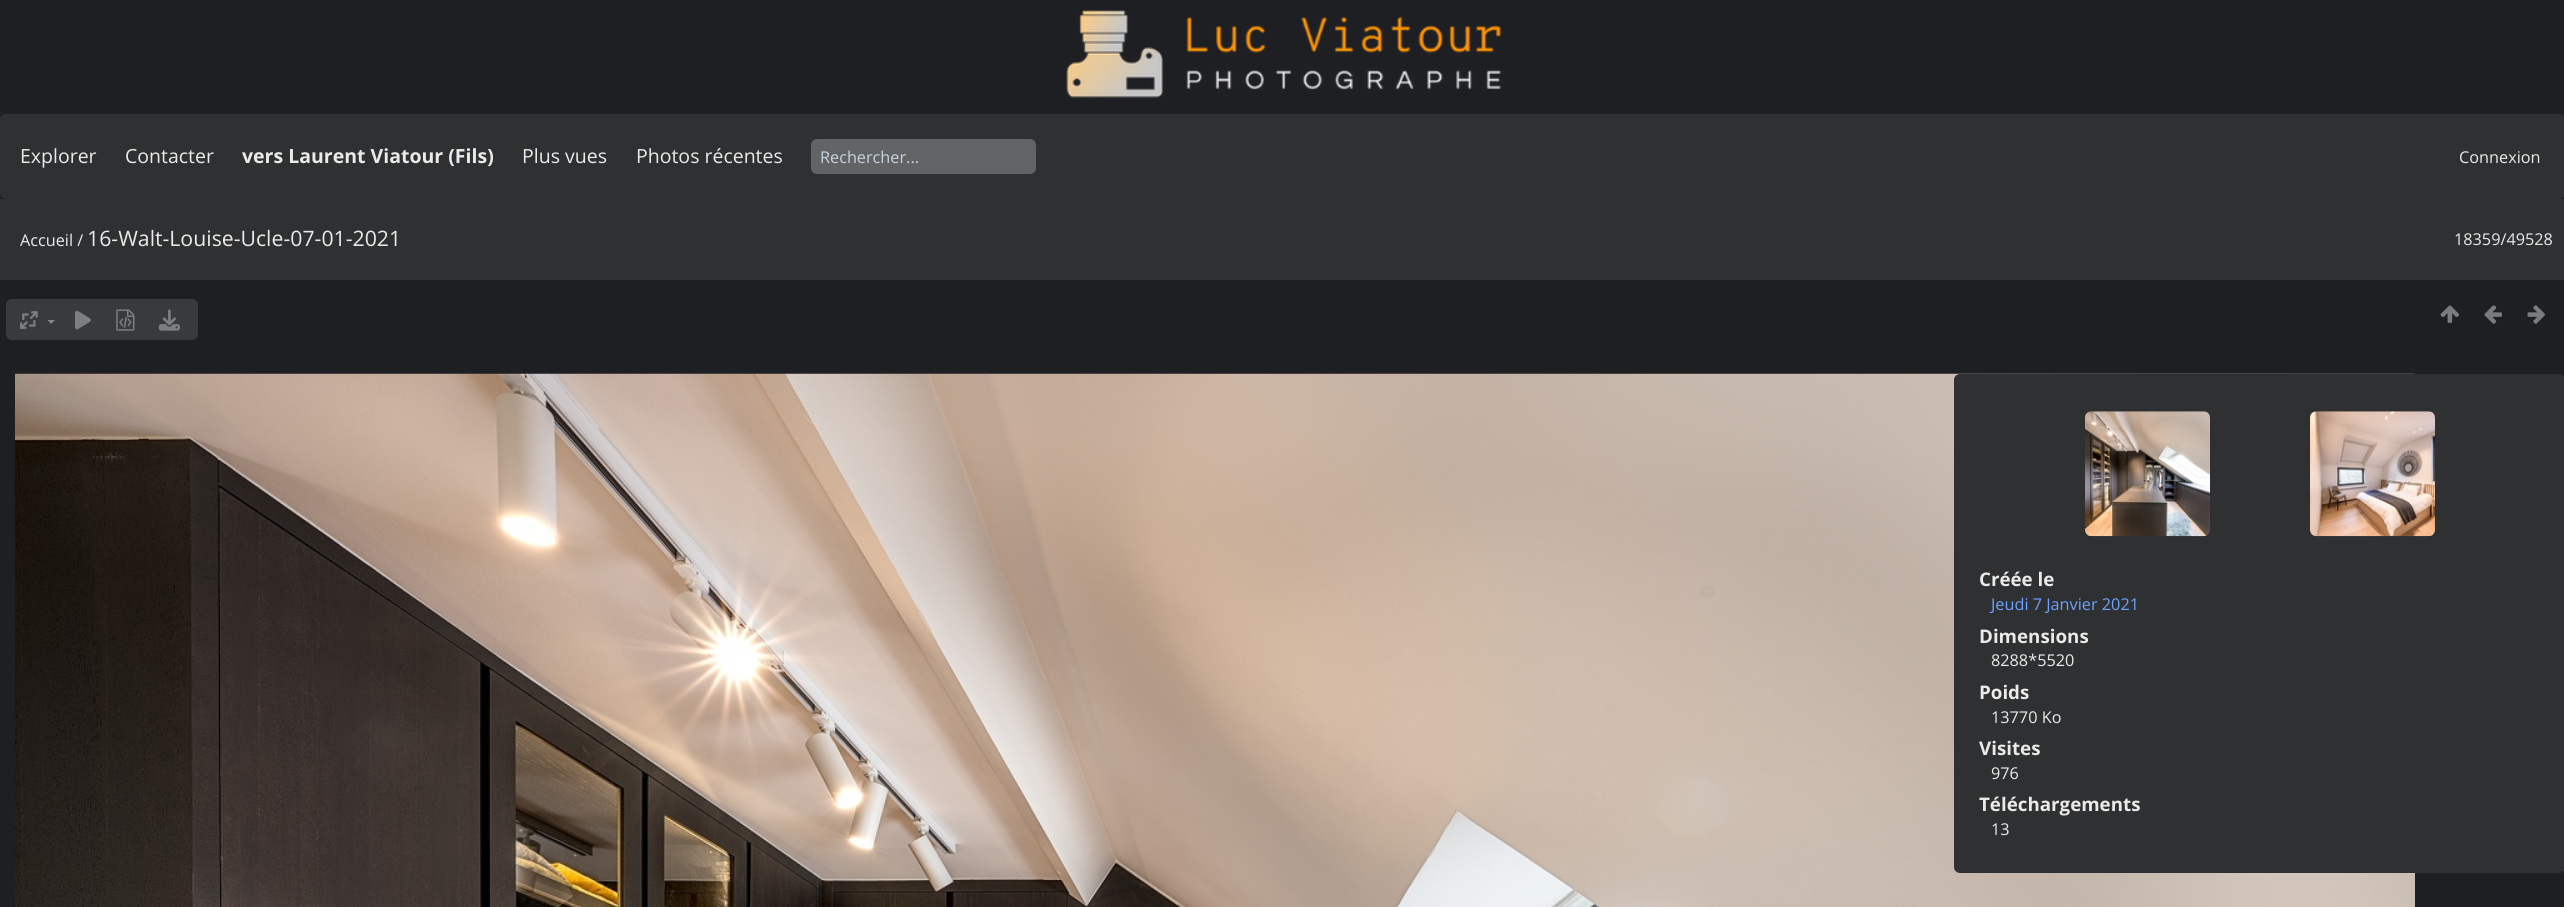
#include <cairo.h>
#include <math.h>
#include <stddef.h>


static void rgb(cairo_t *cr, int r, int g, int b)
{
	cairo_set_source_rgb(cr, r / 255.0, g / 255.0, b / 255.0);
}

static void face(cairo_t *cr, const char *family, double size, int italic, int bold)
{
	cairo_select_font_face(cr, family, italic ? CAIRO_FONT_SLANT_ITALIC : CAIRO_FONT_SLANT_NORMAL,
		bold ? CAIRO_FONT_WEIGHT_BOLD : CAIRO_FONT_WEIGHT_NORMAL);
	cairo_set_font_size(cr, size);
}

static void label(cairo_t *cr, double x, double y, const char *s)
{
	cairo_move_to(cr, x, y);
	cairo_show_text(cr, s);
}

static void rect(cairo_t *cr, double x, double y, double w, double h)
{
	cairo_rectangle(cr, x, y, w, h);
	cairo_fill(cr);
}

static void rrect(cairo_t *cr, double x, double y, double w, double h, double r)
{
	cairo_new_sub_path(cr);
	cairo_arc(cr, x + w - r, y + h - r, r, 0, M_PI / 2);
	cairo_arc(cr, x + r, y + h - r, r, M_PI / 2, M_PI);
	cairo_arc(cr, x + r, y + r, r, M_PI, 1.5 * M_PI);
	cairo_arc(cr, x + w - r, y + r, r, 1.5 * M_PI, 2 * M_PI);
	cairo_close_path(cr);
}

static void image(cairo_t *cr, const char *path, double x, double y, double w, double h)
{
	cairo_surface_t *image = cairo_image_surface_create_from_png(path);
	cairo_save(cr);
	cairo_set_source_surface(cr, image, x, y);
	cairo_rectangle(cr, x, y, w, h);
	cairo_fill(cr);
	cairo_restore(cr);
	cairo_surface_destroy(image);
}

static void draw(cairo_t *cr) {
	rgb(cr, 30, 31, 35);
	cairo_paint(cr);
	image(cr, "image0.png", 1066, 10, 436, 88);
	rgb(cr, 47, 48, 50);
	rrect(cr, 0, 114, 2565, 85, 6);
	cairo_fill(cr);
	face(cr, "Open Sans", 19.5, 0, 0);
	rgb(cr, 234, 234, 233);
	label(cr, 20, 163, "Explorer");
	label(cr, 125, 163, "Contacter");
	face(cr, "Open Sans", 19.5, 0, 1);
	label(cr, 242, 163, "vers Laurent Viatour (Fils)");
	face(cr, "Open Sans", 19.5, 0, 0);
	label(cr, 522, 163, "Plus vues");
	label(cr, 636, 163, "Photos récentes");
	rgb(cr, 97, 99, 100);
	rrect(cr, 811, 139, 225, 35, 6);
	cairo_fill(cr);
	face(cr, "Open Sans", 16.25, 0, 0);
	rgb(cr, 199, 211, 225);
	label(cr, 820, 163, "Rechercher...");
	rgb(cr, 234, 234, 233);
	label(cr, 2459, 163, "Connexion");
	rgb(cr, 47, 48, 50);
	rect(cr, 0, 199, 2564, 81);
	rgb(cr, 234, 234, 233);
	label(cr, 20, 246, "Accueil /");
	face(cr, "Open Sans", 21.25, 0, 0);
	label(cr, 87, 246, "16-Walt-Louise-Ucle-07-01-2021");
	face(cr, "Open Sans", 16.25, 0, 0);
	label(cr, 2454, 245, "18359/49528");
	rgb(cr, 57, 58, 61);
	rrect(cr, 6, 299, 192, 41, 6);
	cairo_fill(cr);
	image(cr, "image1.png", 20, 311, 18, 18);
	rgb(cr, 132, 133, 136);
	cairo_new_path(cr);
	cairo_move_to(cr, 47.5, 320);
	cairo_line_to(cr, 55, 320);
	cairo_line_to(cr, 51, 324);
	cairo_close_path(cr);
	cairo_fill(cr);
	image(cr, "image2.png", 75, 310, 16, 20);
	image(cr, "image3.png", 116, 309, 19, 22);
	image(cr, "image4.png", 158, 309, 22, 22);
	image(cr, "image5.png", 2440, 305, 20, 18);
	image(cr, "image6.png", 2484, 305, 18, 19);
	image(cr, "image7.png", 2527, 305, 18, 19);
	image(cr, "image8.png", 15, 373, 2400, 534);
	rgb(cr, 47, 48, 50);
	rrect(cr, 1954, 374, 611, 499, 6);
	cairo_fill(cr);
	image(cr, "image9.png", 2085, 411, 125, 126);
	image(cr, "image10.png", 2310, 411, 125, 126);
	face(cr, "Open Sans", 18.75, 0, 1);
	rgb(cr, 234, 234, 233);
	label(cr, 1979, 586, "Créée le");
	face(cr, "Open Sans", 16.25, 0, 0);
	rgb(cr, 107, 161, 255);
	label(cr, 1991, 610, "Jeudi 7 Janvier 2021");
	face(cr, "Open Sans", 18.75, 0, 1);
	rgb(cr, 234, 234, 233);
	label(cr, 1979, 643, "Dimensions");
	face(cr, "Open Sans", 16.25, 0, 0);
	label(cr, 1991, 666, "8288*5520");
	face(cr, "Open Sans", 18.75, 0, 1);
	label(cr, 1979, 699, "Poids");
	face(cr, "Open Sans", 16.25, 0, 0);
	label(cr, 1991, 723, "13770 Ko");
	face(cr, "Open Sans", 18.75, 0, 1);
	label(cr, 1979, 755, "Visites");
	face(cr, "Open Sans", 16.25, 0, 0);
	label(cr, 1991, 779, "976");
	face(cr, "Open Sans", 18.75, 0, 1);
	label(cr, 1979, 811, "Téléchargements");
	face(cr, "Open Sans", 16.25, 0, 0);
	label(cr, 1991, 835, "13");
}

int main(void) {
	cairo_surface_t *surface = cairo_image_surface_create(CAIRO_FORMAT_RGB24, 2564, 907);
	cairo_t *cr = cairo_create(surface);
	cairo_font_options_t *options = cairo_font_options_create();
	cairo_font_options_set_hint_metrics(options, CAIRO_HINT_METRICS_OFF);
	cairo_font_options_set_hint_style(options, CAIRO_HINT_STYLE_NONE);
	cairo_set_font_options(cr, options);
	cairo_set_miter_limit(cr, 4);
	draw(cr);
	cairo_surface_write_to_png(surface, "render.png");
	cairo_font_options_destroy(options);
	cairo_destroy(cr);
	cairo_surface_destroy(surface);
	return 0;
}
